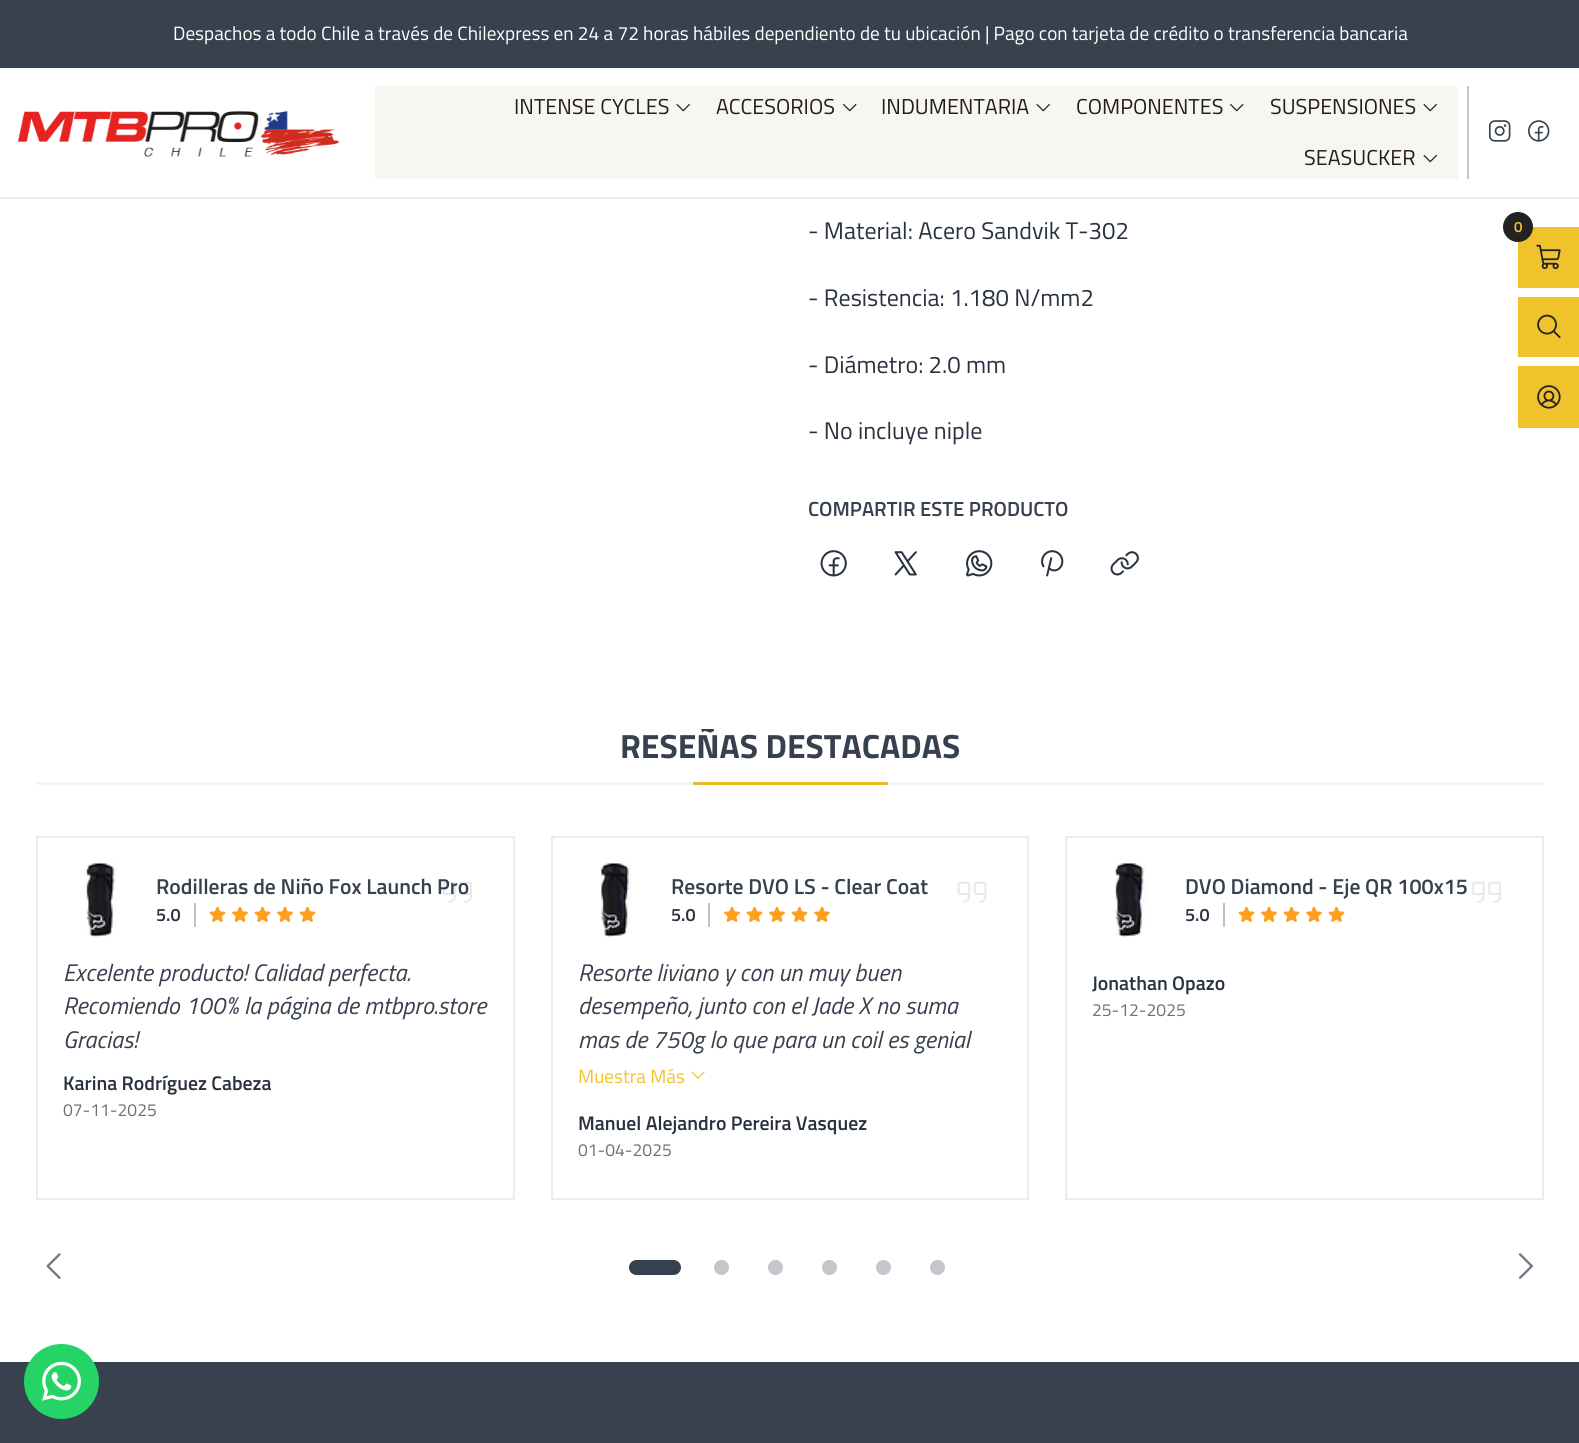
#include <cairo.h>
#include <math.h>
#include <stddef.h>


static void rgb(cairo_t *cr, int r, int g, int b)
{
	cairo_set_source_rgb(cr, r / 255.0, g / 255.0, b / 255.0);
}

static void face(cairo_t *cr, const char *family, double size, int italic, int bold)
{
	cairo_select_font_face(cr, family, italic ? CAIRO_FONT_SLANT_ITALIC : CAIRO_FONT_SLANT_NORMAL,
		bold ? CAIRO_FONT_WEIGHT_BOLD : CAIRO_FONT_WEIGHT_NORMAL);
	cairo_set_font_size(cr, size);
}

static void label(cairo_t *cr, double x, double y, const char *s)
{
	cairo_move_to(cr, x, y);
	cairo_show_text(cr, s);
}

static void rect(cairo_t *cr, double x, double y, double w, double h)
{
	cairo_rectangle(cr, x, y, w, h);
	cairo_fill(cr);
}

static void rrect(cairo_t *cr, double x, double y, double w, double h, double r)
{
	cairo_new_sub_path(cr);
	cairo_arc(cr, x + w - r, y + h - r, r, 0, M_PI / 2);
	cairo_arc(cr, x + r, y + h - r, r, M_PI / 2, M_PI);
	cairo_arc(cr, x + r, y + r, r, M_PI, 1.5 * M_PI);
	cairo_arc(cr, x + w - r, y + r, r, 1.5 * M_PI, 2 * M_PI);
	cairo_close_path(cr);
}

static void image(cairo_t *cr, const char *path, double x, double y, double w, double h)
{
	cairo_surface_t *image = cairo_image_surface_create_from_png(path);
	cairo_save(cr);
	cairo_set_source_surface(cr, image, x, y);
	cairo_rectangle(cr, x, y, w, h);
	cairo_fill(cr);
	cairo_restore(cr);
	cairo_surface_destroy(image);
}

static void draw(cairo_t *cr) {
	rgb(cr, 255, 255, 255);
	cairo_paint(cr);
	rgb(cr, 245, 245, 246);
	rect(cr, 36, 782, 1508, 3);
	rgb(cr, 55, 66, 78);
	rect(cr, 0, 0, 1579, 68);
	face(cr, "Titillium Web", 19.2, 0, 0);
	rgb(cr, 255, 255, 255);
	label(cr, 173, 40, "Despachos a todo Chile a través de Chilexpress en 24 a 72 horas hábiles dependiento de tu ubicación | Pago con tarjeta de crédito o transferencia bancaria");
	rgb(cr, 235, 236, 237);
	rect(cr, 0, 197, 1579, 2);
	image(cr, "image0.png", 18, 111, 321, 46);
	rgb(cr, 247, 247, 242);
	rect(cr, 375, 86, 1083, 93);
	face(cr, "Titillium Web", 21.6, 0, 0);
	rgb(cr, 38, 28, 21);
	label(cr, 514, 114, "INTENSE CYCLES");
	image(cr, "image1.png", 676, 104, 14, 8);
	label(cr, 716, 114, "ACCESORIOS");
	image(cr, "image2.png", 843, 104, 14, 8);
	label(cr, 881, 114, "INDUMENTARIA");
	image(cr, "image1.png", 1036, 104, 14, 8);
	label(cr, 1076, 114, "COMPONENTES");
	image(cr, "image2.png", 1230, 104, 14, 8);
	label(cr, 1270, 114, "SUSPENSIONES");
	image(cr, "image1.png", 1423, 104, 14, 8);
	label(cr, 1304, 165, "SEASUCKER");
	image(cr, "image1.png", 1423, 155, 14, 8);
	rgb(cr, 195, 198, 202);
	rect(cr, 1467, 86, 2, 93);
	image(cr, "image3.png", 1488, 120, 23, 22);
	image(cr, "image4.png", 1528, 120, 22, 22);
	rgb(cr, 240, 194, 44);
	rect(cr, 1518, 227, 61, 61);
	rgb(cr, 34, 34, 34);
	cairo_arc(cr, 1518, 227, 15, 0, 2 * M_PI);
	cairo_fill(cr);
	face(cr, "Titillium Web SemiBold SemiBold", 15, 0, 0);
	rgb(cr, 240, 194, 44);
	label(cr, 1514, 232, "0");
	image(cr, "image5.png", 1536, 244, 25, 26);
	rect(cr, 1518, 297, 61, 60);
	image(cr, "image6.png", 1537, 314, 24, 25);
	rect(cr, 1518, 366, 61, 62);
	image(cr, "image7.png", 1537, 385, 24, 24);
	face(cr, "Titillium Web", 24, 0, 0);
	rgb(cr, 41, 50, 62);
	label(cr, 808, 239, "- Material: Acero Sandvik T-302");
	label(cr, 808, 306, "- Resistencia: 1.180 N/mm2");
	label(cr, 808, 373, "- Diámetro: 2.0 mm");
	label(cr, 808, 439, "- No incluye niple");
	face(cr, "Titillium Web SemiBold SemiBold", 20.4, 0, 0);
	rgb(cr, 55, 64, 78);
	label(cr, 808, 516, "COMPARTIR ESTE PRODUCTO");
	image(cr, "image8.png", 820, 550, 27, 27);
	image(cr, "image9.png", 894, 551, 23, 25);
	image(cr, "image10.png", 966, 550, 27, 27);
	image(cr, "image11.png", 1041, 550, 23, 27);
	image(cr, "image12.png", 1110, 551, 29, 25);
	cairo_save(cr);
	cairo_rectangle(cr, 36, 729, 1508, 107);
	cairo_clip(cr);
	face(cr, "Titillium Web", 33.6, 0, 1);
	label(cr, 620, 758, "RESEÑAS DESTACADAS");
	cairo_restore(cr);
	rgb(cr, 231, 187, 46);
	rect(cr, 693, 782, 195, 3);
	cairo_rectangle(cr, 37, 837, 477, 362);
	rgb(cr, 235, 236, 237);
	cairo_stroke(cr);
	image(cr, "image13.png", 85, 862, 32, 75);
	face(cr, "Titillium Web SemiBold SemiBold", 21.6, 0, 0);
	rgb(cr, 55, 64, 78);
	label(cr, 156, 894, "Rodilleras de Niño Fox Launch Pro");
	face(cr, "Titillium Web SemiBold SemiBold", 18, 0, 0);
	rgb(cr, 41, 50, 62);
	label(cr, 156, 921, "5.0");
	rgb(cr, 191, 194, 197);
	rect(cr, 194, 903, 2, 24);
	image(cr, "image14.png", 209, 906, 17, 16);
	image(cr, "image15.png", 232, 906, 16, 16);
	image(cr, "image14.png", 254, 906, 17, 16);
	image(cr, "image15.png", 277, 906, 16, 16);
	image(cr, "image14.png", 299, 906, 17, 16);
	image(cr, "image16.png", 443, 881, 29, 22);
	face(cr, "Titillium Web", 24, 1, 0);
	rgb(cr, 55, 64, 78);
	label(cr, 63, 981, "Excelente producto! Calidad perfecta.");
	label(cr, 63, 1014, "Recomiendo 100% la página de mtbpro.store");
	label(cr, 63, 1048, "Gracias!");
	face(cr, "Titillium Web SemiBold SemiBold", 19.75, 0, 0);
	rgb(cr, 41, 50, 62);
	label(cr, 63, 1090, "Karina Rodríguez Cabeza");
	face(cr, "Titillium Web", 17.5, 0, 0);
	rgb(cr, 105, 112, 120);
	label(cr, 63, 1116, "07-11-2025");
	cairo_rectangle(cr, 552, 837, 476, 362);
	rgb(cr, 235, 236, 237);
	cairo_stroke(cr);
	image(cr, "image17.png", 599, 862, 33, 75);
	face(cr, "Titillium Web SemiBold SemiBold", 21.6, 0, 0);
	rgb(cr, 55, 64, 78);
	label(cr, 671, 894, "Resorte DVO LS - Clear Coat");
	face(cr, "Titillium Web SemiBold SemiBold", 18, 0, 0);
	rgb(cr, 41, 50, 62);
	label(cr, 671, 921, "5.0");
	rgb(cr, 191, 194, 197);
	rect(cr, 708, 903, 2, 24);
	image(cr, "image15.png", 724, 906, 16, 16);
	image(cr, "image14.png", 746, 906, 17, 16);
	image(cr, "image15.png", 769, 906, 16, 16);
	image(cr, "image14.png", 791, 906, 17, 16);
	image(cr, "image15.png", 814, 906, 16, 16);
	image(cr, "image18.png", 957, 881, 30, 22);
	face(cr, "Titillium Web", 24, 1, 0);
	rgb(cr, 55, 64, 78);
	label(cr, 578, 981, "Resorte liviano y con un muy buen");
	label(cr, 578, 1014, "desempeño, junto con el Jade X no suma");
	label(cr, 578, 1048, "mas de 750g lo que para un coil es genial");
	face(cr, "Titillium Web", 19.2, 0, 0);
	rgb(cr, 240, 194, 44);
	label(cr, 578, 1083, "Muestra Más");
	image(cr, "image19.png", 691, 1071, 14, 8);
	face(cr, "Titillium Web SemiBold SemiBold", 19.75, 0, 0);
	rgb(cr, 41, 50, 62);
	label(cr, 578, 1130, "Manuel Alejandro Pereira Vasquez");
	face(cr, "Titillium Web", 17.5, 0, 0);
	rgb(cr, 105, 112, 120);
	label(cr, 578, 1156, "01-04-2025");
	cairo_rectangle(cr, 1066, 837, 477, 362);
	rgb(cr, 235, 236, 237);
	cairo_stroke(cr);
	image(cr, "image13.png", 1114, 862, 32, 75);
	face(cr, "Titillium Web SemiBold SemiBold", 21.6, 0, 0);
	rgb(cr, 55, 64, 78);
	label(cr, 1185, 894, "DVO Diamond - Eje QR 100x15");
	face(cr, "Titillium Web SemiBold SemiBold", 18, 0, 0);
	rgb(cr, 41, 50, 62);
	label(cr, 1185, 921, "5.0");
	rgb(cr, 191, 194, 197);
	rect(cr, 1223, 903, 2, 24);
	image(cr, "image14.png", 1238, 906, 17, 16);
	image(cr, "image15.png", 1261, 906, 16, 16);
	image(cr, "image14.png", 1283, 906, 17, 16);
	image(cr, "image15.png", 1306, 906, 16, 16);
	image(cr, "image14.png", 1328, 906, 17, 16);
	image(cr, "image20.png", 1472, 881, 29, 22);
	face(cr, "Titillium Web SemiBold SemiBold", 19.75, 0, 0);
	rgb(cr, 41, 50, 62);
	label(cr, 1092, 990, "Jonathan Opazo");
	face(cr, "Titillium Web", 17.5, 0, 0);
	rgb(cr, 105, 112, 120);
	label(cr, 1092, 1016, "25-12-2025");
	image(cr, "image21.png", 46, 1253, 15, 26);
	rgb(cr, 55, 64, 78);
	rrect(cr, 629, 1260, 52, 15, 7.5);
	cairo_fill(cr);
	rgb(cr, 195, 198, 202);
	cairo_arc(cr, 721.5, 1267.5, 7.5, 0, 2 * M_PI);
	cairo_fill(cr);
	cairo_arc(cr, 775.5, 1267.5, 7.5, 0, 2 * M_PI);
	cairo_fill(cr);
	cairo_arc(cr, 829.5, 1267.5, 7.5, 0, 2 * M_PI);
	cairo_fill(cr);
	cairo_arc(cr, 883.5, 1267.5, 7.5, 0, 2 * M_PI);
	cairo_fill(cr);
	cairo_arc(cr, 937.5, 1267.5, 7.5, 0, 2 * M_PI);
	cairo_fill(cr);
	image(cr, "image22.png", 1518, 1253, 15, 26);
	rgb(cr, 55, 66, 78);
	rect(cr, 0, 1362, 1579, 81);
	rgb(cr, 37, 211, 102);
	cairo_arc(cr, 61.5, 1381.5, 37.5, 0, 2 * M_PI);
	cairo_fill(cr);
	image(cr, "image23.png", 42, 1361, 39, 40);
}

int main(void) {
	cairo_surface_t *surface = cairo_image_surface_create(CAIRO_FORMAT_RGB24, 1579, 1443);
	cairo_t *cr = cairo_create(surface);
	cairo_font_options_t *options = cairo_font_options_create();
	cairo_font_options_set_hint_metrics(options, CAIRO_HINT_METRICS_OFF);
	cairo_font_options_set_hint_style(options, CAIRO_HINT_STYLE_NONE);
	cairo_set_font_options(cr, options);
	cairo_set_miter_limit(cr, 4);
	draw(cr);
	cairo_surface_write_to_png(surface, "render.png");
	cairo_font_options_destroy(options);
	cairo_destroy(cr);
	cairo_surface_destroy(surface);
	return 0;
}
